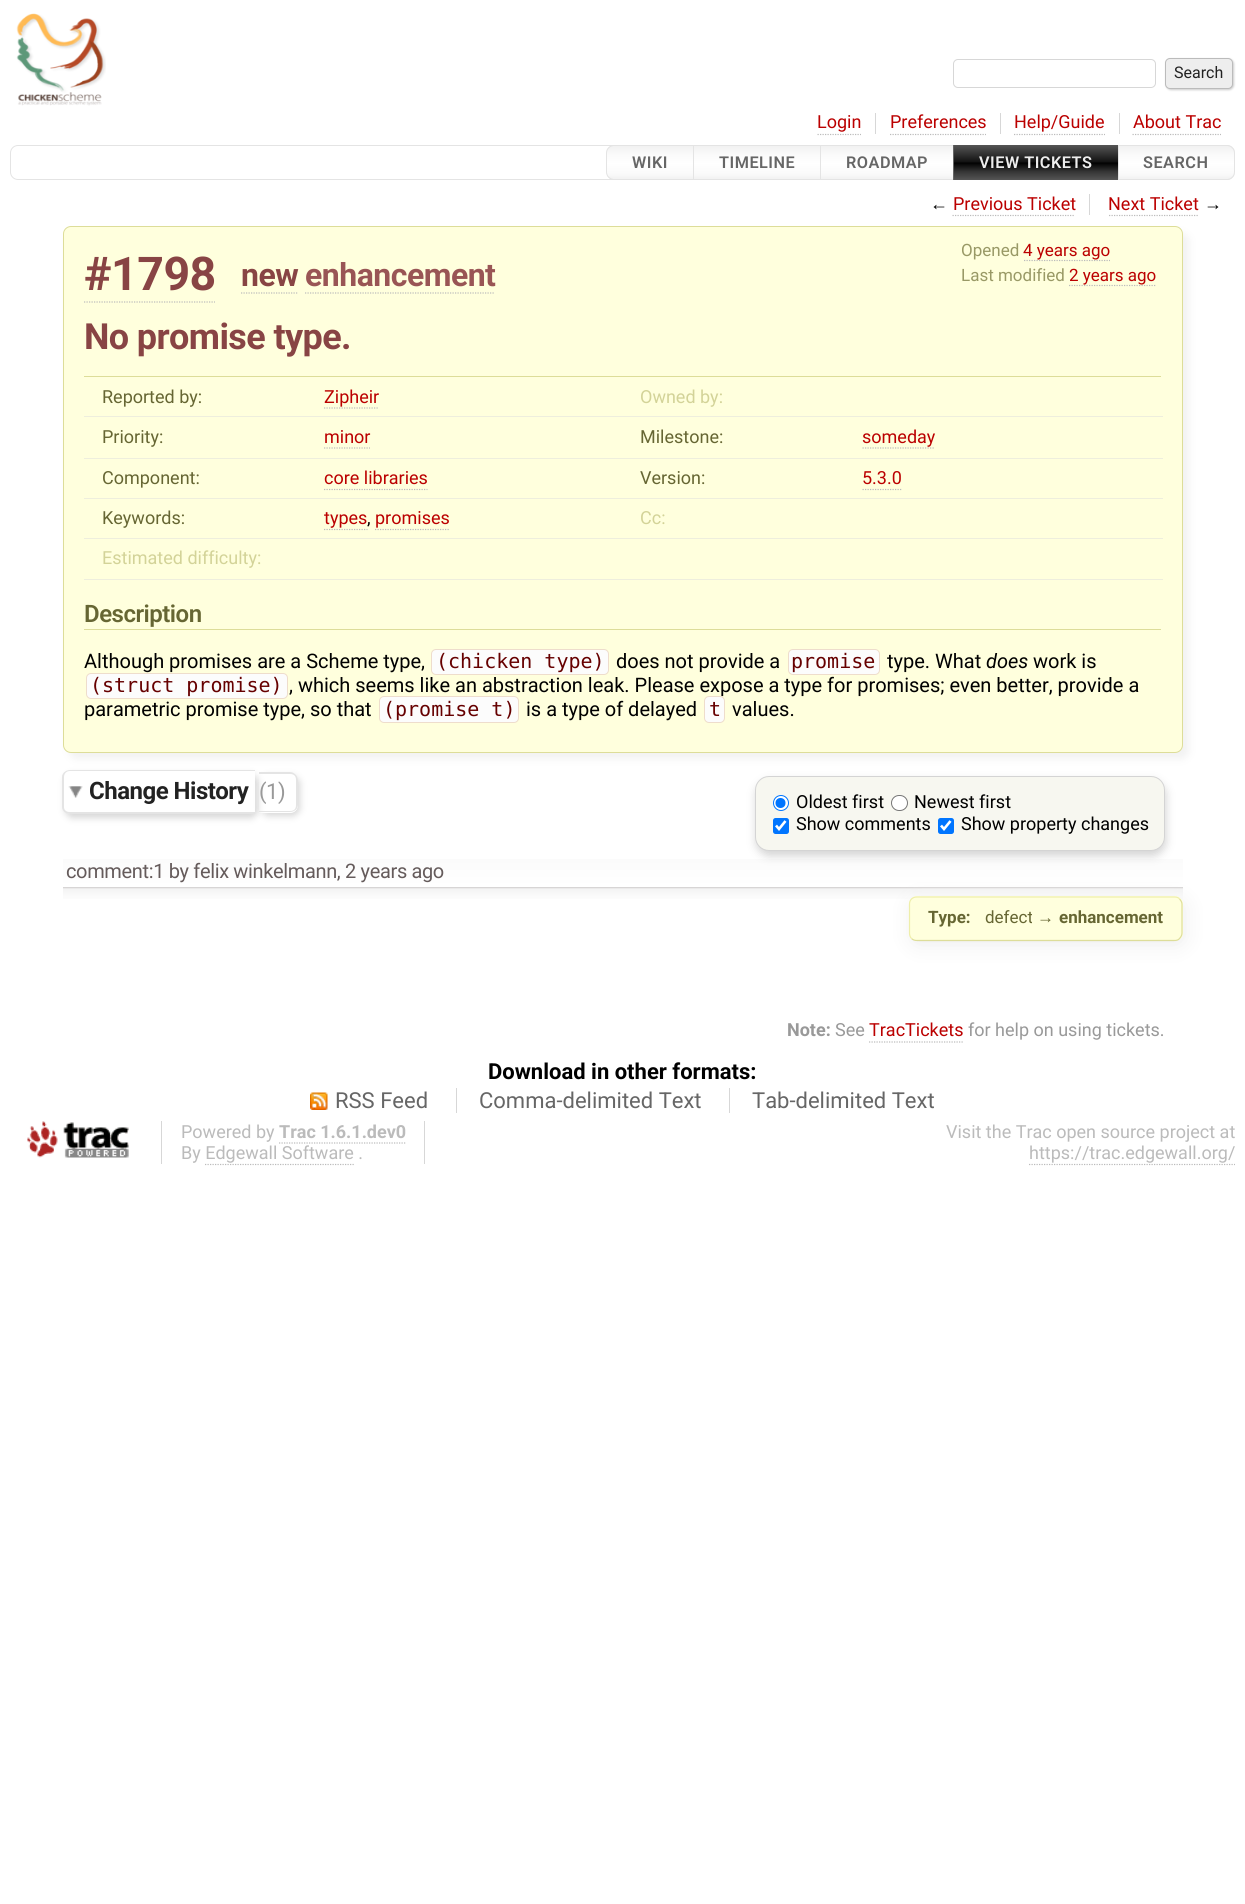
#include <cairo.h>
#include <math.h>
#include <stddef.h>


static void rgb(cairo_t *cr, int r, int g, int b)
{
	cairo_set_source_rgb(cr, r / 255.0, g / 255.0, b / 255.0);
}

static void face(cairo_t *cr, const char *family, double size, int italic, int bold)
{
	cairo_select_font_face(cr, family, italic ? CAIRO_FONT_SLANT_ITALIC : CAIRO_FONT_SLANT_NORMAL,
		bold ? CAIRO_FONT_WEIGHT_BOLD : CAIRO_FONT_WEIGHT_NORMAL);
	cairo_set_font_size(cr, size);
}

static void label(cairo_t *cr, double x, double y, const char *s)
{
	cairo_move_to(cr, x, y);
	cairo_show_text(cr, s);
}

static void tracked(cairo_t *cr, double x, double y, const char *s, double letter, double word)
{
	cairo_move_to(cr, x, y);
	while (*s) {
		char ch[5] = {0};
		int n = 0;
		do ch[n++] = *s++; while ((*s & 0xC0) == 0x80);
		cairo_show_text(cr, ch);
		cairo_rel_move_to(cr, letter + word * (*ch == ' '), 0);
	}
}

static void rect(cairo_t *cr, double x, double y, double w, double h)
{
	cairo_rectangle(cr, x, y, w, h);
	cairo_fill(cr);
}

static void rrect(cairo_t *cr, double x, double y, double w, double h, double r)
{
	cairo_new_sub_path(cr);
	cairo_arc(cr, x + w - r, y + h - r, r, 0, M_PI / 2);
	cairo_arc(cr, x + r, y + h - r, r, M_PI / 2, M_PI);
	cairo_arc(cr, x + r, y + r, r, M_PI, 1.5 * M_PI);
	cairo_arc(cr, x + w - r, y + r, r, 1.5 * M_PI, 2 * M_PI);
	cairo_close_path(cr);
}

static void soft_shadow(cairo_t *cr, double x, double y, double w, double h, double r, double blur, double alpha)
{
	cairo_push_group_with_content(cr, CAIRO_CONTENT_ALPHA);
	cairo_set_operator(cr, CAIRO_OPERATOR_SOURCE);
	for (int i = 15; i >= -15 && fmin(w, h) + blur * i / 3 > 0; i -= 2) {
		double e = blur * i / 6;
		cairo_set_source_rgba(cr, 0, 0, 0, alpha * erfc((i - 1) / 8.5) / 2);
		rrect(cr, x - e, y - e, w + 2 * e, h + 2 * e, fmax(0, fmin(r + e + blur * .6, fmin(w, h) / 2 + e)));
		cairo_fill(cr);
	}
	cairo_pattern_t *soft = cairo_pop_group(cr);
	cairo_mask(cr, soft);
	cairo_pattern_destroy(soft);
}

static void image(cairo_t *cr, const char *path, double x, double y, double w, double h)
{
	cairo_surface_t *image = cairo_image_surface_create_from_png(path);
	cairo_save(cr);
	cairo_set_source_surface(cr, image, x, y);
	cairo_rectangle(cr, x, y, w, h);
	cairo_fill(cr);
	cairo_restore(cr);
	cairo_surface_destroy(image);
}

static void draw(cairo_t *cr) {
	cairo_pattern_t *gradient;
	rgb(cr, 255, 255, 255);
	cairo_paint(cr);
	image(cr, "image0.png", 16, 13, 90, 93);
	rrect(cr, 953.5, 59.5, 202, 28, 4.5);
	rgb(cr, 215, 215, 215);
	cairo_set_line_width(cr, 1);
	cairo_stroke(cr);
	rgb(cr, 204, 204, 204);
	soft_shadow(cr, 1166, 59, 68, 31, 5, 1, 1);
	rgb(cr, 238, 238, 238);
	rrect(cr, 1165.5, 58.5, 67, 30, 4.5);
	cairo_fill_preserve(cr);
	rgb(cr, 187, 187, 187);
	cairo_stroke(cr);
	face(cr, "Roboto", 16, 0, 0);
	rgb(cr, 34, 34, 34);
	label(cr, 1174, 78, "Search");
	rgb(cr, 215, 215, 215);
	rect(cr, 875, 113, 1, 21);
	face(cr, "Roboto", 18, 0, 0);
	rgb(cr, 187, 0, 0);
	label(cr, 817, 128, "Login");
	cairo_new_path(cr);
	cairo_move_to(cr, 817.5, 134.5);
	cairo_line_to(cr, 861, 134.5);
	rgb(cr, 187, 187, 187);
	cairo_set_line_width(cr, 1.2);
	cairo_set_dash(cr, (double[]){1.25, 1.25}, 2, 0);
	cairo_stroke(cr);
	rgb(cr, 215, 215, 215);
	rect(cr, 1000, 113, 1, 21);
	rgb(cr, 187, 0, 0);
	label(cr, 890, 128, "Preferences");
	cairo_new_path(cr);
	cairo_move_to(cr, 890, 134.5);
	cairo_line_to(cr, 986, 134.5);
	rgb(cr, 187, 187, 187);
	cairo_stroke(cr);
	rgb(cr, 215, 215, 215);
	rect(cr, 1119, 113, 1, 21);
	rgb(cr, 187, 0, 0);
	label(cr, 1014, 128, "Help/Guide");
	cairo_new_path(cr);
	cairo_move_to(cr, 1014, 134.5);
	cairo_line_to(cr, 1105, 134.5);
	rgb(cr, 187, 187, 187);
	cairo_stroke(cr);
	rgb(cr, 187, 0, 0);
	label(cr, 1133, 128, "About Trac");
	cairo_new_path(cr);
	cairo_move_to(cr, 1132.5, 134.5);
	cairo_line_to(cr, 1221, 134.5);
	rgb(cr, 187, 187, 187);
	cairo_stroke(cr);
	rrect(cr, 10.5, 145.5, 1224, 34, 7.5);
	rgb(cr, 228, 228, 228);
	cairo_set_line_width(cr, 1);
	cairo_set_dash(cr, NULL, 0, 0);
	cairo_stroke(cr);
	cairo_save(cr);
	cairo_new_path(cr);
	cairo_move_to(cr, 614, 145);
	cairo_line_to(cr, 695, 145);
	cairo_line_to(cr, 695, 180);
	cairo_line_to(cr, 614, 180);
	cairo_curve_to(cr, 609.5, 180, 606, 176.5, 606, 172);
	cairo_line_to(cr, 606, 153);
	cairo_curve_to(cr, 606, 148.5, 609.5, 145, 614, 145);
	cairo_close_path(cr);
	cairo_clip(cr);
	gradient = cairo_pattern_create_linear(651, 146, 651, 179);
	cairo_pattern_add_color_stop_rgba(gradient, 0, 0.949, 0.949, 0.949, 1);
	cairo_pattern_add_color_stop_rgba(gradient, 0.25, 0.98, 0.98, 0.98, 1);
	cairo_pattern_add_color_stop_rgba(gradient, 0.49, 0.996, 0.996, 0.996, 1);
	cairo_pattern_add_color_stop_rgba(gradient, 0.51, 1, 1, 1, 1);
	cairo_pattern_add_color_stop_rgba(gradient, 0.85, 0.98, 0.98, 0.98, 1);
	cairo_pattern_add_color_stop_rgba(gradient, 1, 0.949, 0.949, 0.949, 1);
	cairo_set_source(cr, gradient);
	cairo_pattern_destroy(gradient);
	rect(cr, 606, 146, 87, 33);
	cairo_restore(cr);
	cairo_new_path(cr);
	cairo_move_to(cr, 614, 145.5);
	cairo_line_to(cr, 694.5, 145.5);
	cairo_line_to(cr, 694.5, 179.5);
	cairo_line_to(cr, 614, 179.5);
	cairo_curve_to(cr, 610, 179.5, 606.5, 176, 606.5, 172);
	cairo_line_to(cr, 606.5, 153);
	cairo_curve_to(cr, 606.5, 149, 610, 145.5, 614, 145.5);
	cairo_close_path(cr);
	cairo_stroke(cr);
	face(cr, "Roboto SemiBold", 16.25, 0, 0);
	rgb(cr, 102, 102, 102);
	tracked(cr, 632, 168, "WIKI", 0.5, 0);
	gradient = cairo_pattern_create_linear(757, 146, 757, 179);
	cairo_pattern_add_color_stop_rgba(gradient, 0, 0.949, 0.949, 0.949, 1);
	cairo_pattern_add_color_stop_rgba(gradient, 0.25, 0.98, 0.98, 0.98, 1);
	cairo_pattern_add_color_stop_rgba(gradient, 0.49, 0.996, 0.996, 0.996, 1);
	cairo_pattern_add_color_stop_rgba(gradient, 0.51, 1, 1, 1, 1);
	cairo_pattern_add_color_stop_rgba(gradient, 0.85, 0.98, 0.98, 0.98, 1);
	cairo_pattern_add_color_stop_rgba(gradient, 1, 0.949, 0.949, 0.949, 1);
	cairo_set_source(cr, gradient);
	cairo_pattern_destroy(gradient);
	rect(cr, 694, 146, 126, 33);
	cairo_rectangle(cr, 693.5, 145.5, 127, 34);
	rgb(cr, 228, 228, 228);
	cairo_stroke(cr);
	rgb(cr, 102, 102, 102);
	tracked(cr, 719, 168, "TIMELINE", 0.5, 0);
	gradient = cairo_pattern_create_linear(888, 146, 888, 179);
	cairo_pattern_add_color_stop_rgba(gradient, 0, 0.949, 0.949, 0.949, 1);
	cairo_pattern_add_color_stop_rgba(gradient, 0.25, 0.98, 0.98, 0.98, 1);
	cairo_pattern_add_color_stop_rgba(gradient, 0.49, 0.996, 0.996, 0.996, 1);
	cairo_pattern_add_color_stop_rgba(gradient, 0.51, 1, 1, 1, 1);
	cairo_pattern_add_color_stop_rgba(gradient, 0.85, 0.98, 0.98, 0.98, 1);
	cairo_pattern_add_color_stop_rgba(gradient, 1, 0.949, 0.949, 0.949, 1);
	cairo_set_source(cr, gradient);
	cairo_pattern_destroy(gradient);
	rect(cr, 821, 146, 132, 33);
	cairo_rectangle(cr, 820.5, 145.5, 134, 34);
	rgb(cr, 228, 228, 228);
	cairo_stroke(cr);
	rgb(cr, 102, 102, 102);
	tracked(cr, 846, 168, "ROADMAP", 0.5, 0);
	cairo_rectangle(cr, 953.5, 145.5, 165, 34);
	cairo_stroke(cr);
	gradient = cairo_pattern_create_linear(1036, 145, 1036, 180);
	cairo_pattern_add_color_stop_rgba(gradient, 0, 0.333, 0.333, 0.333, 1);
	cairo_pattern_add_color_stop_rgba(gradient, 0.25, 0.2, 0.2, 0.2, 1);
	cairo_pattern_add_color_stop_rgba(gradient, 0.49, 0.067, 0.067, 0.067, 1);
	cairo_pattern_add_color_stop_rgba(gradient, 0.51, 0, 0, 0, 1);
	cairo_pattern_add_color_stop_rgba(gradient, 0.75, 0.2, 0.2, 0.2, 1);
	cairo_pattern_add_color_stop_rgba(gradient, 1, 0.333, 0.333, 0.333, 1);
	cairo_set_source(cr, gradient);
	cairo_pattern_destroy(gradient);
	rect(cr, 954, 145, 164, 35);
	rgb(cr, 238, 238, 238);
	tracked(cr, 979, 168, "VIEW TICKETS", 0.5, 0);
	cairo_save(cr);
	cairo_new_path(cr);
	cairo_move_to(cr, 1118, 145);
	cairo_line_to(cr, 1227, 145);
	cairo_curve_to(cr, 1231.5, 145, 1235, 148.5, 1235, 153);
	cairo_line_to(cr, 1235, 172);
	cairo_curve_to(cr, 1235, 176.5, 1231.5, 180, 1227, 180);
	cairo_line_to(cr, 1118, 180);
	cairo_close_path(cr);
	cairo_clip(cr);
	gradient = cairo_pattern_create_linear(1176, 146, 1176, 179);
	cairo_pattern_add_color_stop_rgba(gradient, 0, 0.949, 0.949, 0.949, 1);
	cairo_pattern_add_color_stop_rgba(gradient, 0.25, 0.98, 0.98, 0.98, 1);
	cairo_pattern_add_color_stop_rgba(gradient, 0.49, 0.996, 0.996, 0.996, 1);
	cairo_pattern_add_color_stop_rgba(gradient, 0.51, 1, 1, 1, 1);
	cairo_pattern_add_color_stop_rgba(gradient, 0.85, 0.98, 0.98, 0.98, 1);
	cairo_pattern_add_color_stop_rgba(gradient, 1, 0.949, 0.949, 0.949, 1);
	cairo_set_source(cr, gradient);
	cairo_pattern_destroy(gradient);
	rect(cr, 1119, 146, 116, 33);
	cairo_restore(cr);
	cairo_new_path(cr);
	cairo_move_to(cr, 1118.5, 145.5);
	cairo_line_to(cr, 1227, 145.5);
	cairo_curve_to(cr, 1231, 145.5, 1234.5, 149, 1234.5, 153);
	cairo_line_to(cr, 1234.5, 172);
	cairo_curve_to(cr, 1234.5, 176, 1231, 179.5, 1227, 179.5);
	cairo_line_to(cr, 1118.5, 179.5);
	cairo_close_path(cr);
	rgb(cr, 228, 228, 228);
	cairo_stroke(cr);
	rgb(cr, 102, 102, 102);
	tracked(cr, 1143, 168, "SEARCH", 0.5, 0);
	rgb(cr, 215, 215, 215);
	rect(cr, 1089, 194, 1, 21);
	face(cr, "Liberation Sans", 18, 0, 0);
	rgb(cr, 0, 0, 0);
	label(cr, 930, 210, "←");
	cairo_new_path(cr);
	cairo_move_to(cr, 952.5, 215.5);
	cairo_line_to(cr, 1075, 215.5);
	rgb(cr, 187, 187, 187);
	cairo_set_line_width(cr, 1.2);
	cairo_set_dash(cr, (double[]){1.25, 1.25}, 2, 0);
	cairo_stroke(cr);
	face(cr, "Roboto", 18, 0, 0);
	rgb(cr, 187, 0, 0);
	label(cr, 953, 210, "Previous Ticket");
	label(cr, 1108, 210, "Next Ticket");
	cairo_new_path(cr);
	cairo_move_to(cr, 1109, 215.5);
	cairo_line_to(cr, 1199, 215.5);
	rgb(cr, 187, 187, 187);
	cairo_stroke(cr);
	face(cr, "Liberation Sans", 18, 0, 0);
	rgb(cr, 0, 0, 0);
	label(cr, 1204, 210, "→");
	cairo_save(cr);
	cairo_set_fill_rule(cr, CAIRO_FILL_RULE_EVEN_ODD);
	cairo_new_path(cr);
	cairo_move_to(cr, 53, 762);
	cairo_line_to(cr, 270, 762);
	cairo_line_to(cr, 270, 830);
	cairo_line_to(cr, 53, 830);
	cairo_close_path(cr);
	cairo_move_to(cr, 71, 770);
	cairo_line_to(cr, 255, 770);
	cairo_line_to(cr, 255, 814);
	cairo_line_to(cr, 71, 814);
	cairo_curve_to(cr, 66.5, 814, 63, 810.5, 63, 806);
	cairo_line_to(cr, 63, 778);
	cairo_curve_to(cr, 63, 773.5, 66.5, 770, 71, 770);
	cairo_close_path(cr);
	cairo_clip(cr);
	rgb(cr, 215, 215, 215);
	soft_shadow(cr, 65, 774, 193, 44, 8, 3.5, 1);
	cairo_restore(cr);
	image(cr, "image1.png", 68, 786, 15, 12);
	rgb(cr, 228, 228, 228);
	cairo_set_fill_rule(cr, CAIRO_FILL_RULE_EVEN_ODD);
	cairo_new_path(cr);
	cairo_move_to(cr, 70, 770);
	cairo_line_to(cr, 255, 770);
	cairo_line_to(cr, 255, 814);
	cairo_line_to(cr, 70, 814);
	cairo_curve_to(cr, 66, 814, 62, 811, 62, 807);
	cairo_line_to(cr, 62, 777);
	cairo_curve_to(cr, 62, 773, 66, 770, 70, 770);
	cairo_close_path(cr);
	cairo_move_to(cr, 70, 771);
	cairo_line_to(cr, 255, 771);
	cairo_line_to(cr, 255, 812);
	cairo_line_to(cr, 70, 812);
	cairo_curve_to(cr, 66, 812, 64, 810, 64, 807);
	cairo_line_to(cr, 64, 777);
	cairo_curve_to(cr, 64, 774, 66, 771, 70, 771);
	cairo_close_path(cr);
	cairo_fill(cr);
	rgb(cr, 242, 242, 242);
	soft_shadow(cr, 69, 233, 1120, 526, 8, 4, 1);
	rgb(cr, 255, 255, 221);
	rrect(cr, 63.5, 226.5, 1119, 526, 7.5);
	cairo_fill_preserve(cr);
	rgb(cr, 221, 221, 153);
	cairo_set_line_width(cr, 1);
	cairo_set_dash(cr, NULL, 0, 0);
	cairo_stroke(cr);
	face(cr, "Roboto", 46.5, 0, 1);
	rgb(cr, 136, 68, 68);
	tracked(cr, 84, 290, "#1798", -0.5, 0);
	cairo_new_path(cr);
	cairo_move_to(cr, 84, 302);
	cairo_line_to(cr, 215, 302);
	rgb(cr, 187, 187, 187);
	cairo_set_line_width(cr, 1.2);
	cairo_set_dash(cr, (double[]){1.25, 1.25}, 2, 0);
	cairo_stroke(cr);
	face(cr, "Roboto", 32, 0, 1);
	rgb(cr, 136, 68, 68);
	tracked(cr, 241, 286, "new", -0.5, 0);
	cairo_new_path(cr);
	cairo_move_to(cr, 241, 293);
	cairo_line_to(cr, 297.5, 293);
	rgb(cr, 187, 187, 187);
	cairo_stroke(cr);
	rgb(cr, 153, 85, 85);
	tracked(cr, 305, 286, "enhancement", -0.5, 0);
	cairo_new_path(cr);
	cairo_move_to(cr, 305, 293);
	cairo_line_to(cr, 495, 293);
	rgb(cr, 187, 187, 187);
	cairo_stroke(cr);
	face(cr, "Roboto", 17, 0, 0);
	rgb(cr, 153, 153, 102);
	label(cr, 961, 256, "Opened");
	cairo_new_path(cr);
	cairo_move_to(cr, 1024, 260.5);
	cairo_line_to(cr, 1110, 260.5);
	rgb(cr, 187, 187, 187);
	cairo_stroke(cr);
	rgb(cr, 187, 0, 0);
	label(cr, 1023, 256, "4 years ago");
	rgb(cr, 153, 153, 102);
	label(cr, 961, 281, "Last modified");
	cairo_new_path(cr);
	cairo_move_to(cr, 1069, 285.5);
	cairo_line_to(cr, 1156, 285.5);
	rgb(cr, 187, 187, 187);
	cairo_stroke(cr);
	rgb(cr, 187, 0, 0);
	label(cr, 1069, 281, "2 years ago");
	face(cr, "Roboto", 36, 0, 1);
	rgb(cr, 136, 68, 68);
	tracked(cr, 84, 349, "No promise type.", -0.6, 0);
	rgb(cr, 221, 221, 153);
	rect(cr, 84, 376, 1077, 1);
	rgb(cr, 238, 238, 221);
	rect(cr, 84, 416, 1079, 1);
	face(cr, "Roboto", 18, 0, 0);
	rgb(cr, 102, 102, 51);
	label(cr, 102, 403, "Reported by:");
	rgb(cr, 187, 0, 0);
	label(cr, 324, 403, "Zipheir");
	cairo_new_path(cr);
	cairo_move_to(cr, 324, 408);
	cairo_line_to(cr, 379, 408);
	rgb(cr, 187, 187, 187);
	cairo_stroke(cr);
	rgb(cr, 211, 211, 152);
	label(cr, 640, 403, "Owned by:");
	rgb(cr, 238, 238, 221);
	rect(cr, 84, 458, 1079, 1);
	rgb(cr, 102, 102, 51);
	label(cr, 102, 443, "Priority:");
	rgb(cr, 187, 0, 0);
	label(cr, 324, 443, "minor");
	cairo_new_path(cr);
	cairo_move_to(cr, 324, 448);
	cairo_line_to(cr, 370, 448);
	rgb(cr, 187, 187, 187);
	cairo_stroke(cr);
	rgb(cr, 102, 102, 51);
	label(cr, 640, 443, "Milestone:");
	rgb(cr, 187, 0, 0);
	label(cr, 862, 443, "someday");
	cairo_new_path(cr);
	cairo_move_to(cr, 862.5, 448);
	cairo_line_to(cr, 935, 448);
	rgb(cr, 187, 187, 187);
	cairo_stroke(cr);
	rgb(cr, 238, 238, 221);
	rect(cr, 84, 498, 1079, 1);
	rgb(cr, 102, 102, 51);
	label(cr, 102, 484, "Component:");
	rgb(cr, 187, 0, 0);
	label(cr, 324, 484, "core libraries");
	cairo_new_path(cr);
	cairo_move_to(cr, 324, 489.5);
	cairo_line_to(cr, 427.5, 489.5);
	rgb(cr, 187, 187, 187);
	cairo_stroke(cr);
	rgb(cr, 102, 102, 51);
	label(cr, 640, 484, "Version:");
	rgb(cr, 187, 0, 0);
	label(cr, 862, 484, "5.3.0");
	cairo_new_path(cr);
	cairo_move_to(cr, 862.5, 489.5);
	cairo_line_to(cr, 902.5, 489.5);
	rgb(cr, 187, 187, 187);
	cairo_stroke(cr);
	rgb(cr, 238, 238, 221);
	rect(cr, 84, 538, 1079, 1);
	rgb(cr, 102, 102, 51);
	label(cr, 102, 524, "Keywords:");
	rgb(cr, 187, 0, 0);
	label(cr, 324, 524, "types");
	cairo_new_path(cr);
	cairo_move_to(cr, 324, 529.5);
	cairo_line_to(cr, 367.5, 529.5);
	rgb(cr, 187, 187, 187);
	cairo_stroke(cr);
	rgb(cr, 0, 0, 0);
	label(cr, 367, 524, ",");
	rgb(cr, 187, 0, 0);
	label(cr, 375, 524, "promises");
	cairo_new_path(cr);
	cairo_move_to(cr, 375, 529.5);
	cairo_line_to(cr, 450, 529.5);
	rgb(cr, 187, 187, 187);
	cairo_stroke(cr);
	rgb(cr, 211, 211, 152);
	label(cr, 640, 524, "Cc:");
	rgb(cr, 238, 238, 221);
	rect(cr, 84, 579, 1079, 1);
	rgb(cr, 211, 211, 152);
	label(cr, 102, 564, "Estimated difficulty:");
	rgb(cr, 221, 221, 153);
	rect(cr, 84, 629, 1077, 1);
	face(cr, "Roboto SemiBold", 24, 0, 0);
	rgb(cr, 102, 102, 51);
	tracked(cr, 84, 622, "Description", -0.5, 0);
	face(cr, "Roboto", 20, 0, 0);
	rgb(cr, 0, 0, 0);
	label(cr, 84, 668, "Although promises are a Scheme type,");
	rgb(cr, 252, 252, 252);
	rrect(cr, 431.5, 649.5, 177, 25, 4.5);
	cairo_fill_preserve(cr);
	rgb(cr, 238, 221, 204);
	cairo_set_line_width(cr, 1);
	cairo_set_dash(cr, NULL, 0, 0);
	cairo_stroke(cr);
	face(cr, "DejaVu Sans Mono", 20, 0, 0);
	rgb(cr, 102, 0, 0);
	label(cr, 436, 668, "(chicken type)");
	face(cr, "Roboto", 20, 0, 0);
	rgb(cr, 0, 0, 0);
	label(cr, 616, 668, "does not provide a");
	rgb(cr, 252, 252, 252);
	rrect(cr, 788.5, 649.5, 91, 25, 4.5);
	cairo_fill_preserve(cr);
	rgb(cr, 238, 221, 204);
	cairo_stroke(cr);
	face(cr, "DejaVu Sans Mono", 20, 0, 0);
	rgb(cr, 102, 0, 0);
	label(cr, 791, 668, "promise");
	face(cr, "Roboto", 20, 0, 0);
	rgb(cr, 0, 0, 0);
	label(cr, 887, 668, "type. What");
	face(cr, "Roboto", 20, 1, 0);
	label(cr, 986, 668, "does");
	face(cr, "Roboto", 20, 0, 0);
	label(cr, 1033, 668, "work is");
	rgb(cr, 252, 252, 252);
	rrect(cr, 86.5, 673.5, 201, 25, 4.5);
	cairo_fill_preserve(cr);
	rgb(cr, 238, 221, 204);
	cairo_stroke(cr);
	face(cr, "DejaVu Sans Mono", 20, 0, 0);
	rgb(cr, 102, 0, 0);
	label(cr, 90, 692, "(struct promise)");
	face(cr, "Roboto", 20, 0, 0);
	rgb(cr, 0, 0, 0);
	label(cr, 289, 692, ", which seems like an abstraction leak. Please expose a type for promises; even better, provide a");
	label(cr, 84, 716, "parametric promise type, so that");
	rgb(cr, 252, 252, 252);
	rrect(cr, 379.5, 696.5, 139, 26, 4.5);
	cairo_fill_preserve(cr);
	rgb(cr, 238, 221, 204);
	cairo_stroke(cr);
	face(cr, "DejaVu Sans Mono", 20, 0, 0);
	rgb(cr, 102, 0, 0);
	label(cr, 383, 716, "(promise t)");
	face(cr, "Roboto", 20, 0, 0);
	rgb(cr, 0, 0, 0);
	label(cr, 526, 716, "is a type of delayed");
	rgb(cr, 252, 252, 252);
	rrect(cr, 704.5, 696.5, 20, 26, 4.5);
	cairo_fill_preserve(cr);
	rgb(cr, 238, 221, 204);
	cairo_stroke(cr);
	face(cr, "DejaVu Sans Mono", 20, 0, 0);
	rgb(cr, 102, 0, 0);
	label(cr, 709, 716, "t");
	face(cr, "Roboto", 20, 0, 0);
	rgb(cr, 0, 0, 0);
	label(cr, 732, 716, "values.");
	cairo_save(cr);
	cairo_new_path(cr);
	cairo_move_to(cr, 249, 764);
	cairo_line_to(cr, 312, 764);
	cairo_line_to(cr, 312, 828);
	cairo_line_to(cr, 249, 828);
	cairo_close_path(cr);
	cairo_move_to(cr, 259, 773);
	cairo_line_to(cr, 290, 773);
	cairo_curve_to(cr, 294.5, 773, 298, 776.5, 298, 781);
	cairo_line_to(cr, 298, 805);
	cairo_curve_to(cr, 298, 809.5, 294.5, 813, 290, 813);
	cairo_line_to(cr, 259, 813);
	cairo_close_path(cr);
	cairo_clip(cr);
	rgb(cr, 215, 215, 215);
	soft_shadow(cr, 261, 776, 39, 40, 8, 3.5, 1);
	cairo_restore(cr);
	face(cr, "Roboto", 24, 0, 1);
	rgb(cr, 34, 34, 34);
	tracked(cr, 89, 799, "Change History", -0.5, 0);
	rgb(cr, 228, 228, 228);
	cairo_new_path(cr);
	cairo_move_to(cr, 259, 772);
	cairo_line_to(cr, 290, 772);
	cairo_curve_to(cr, 294, 772, 298, 776, 298, 780);
	cairo_line_to(cr, 298, 805);
	cairo_curve_to(cr, 298, 809, 294, 812, 290, 812);
	cairo_line_to(cr, 259, 812);
	cairo_close_path(cr);
	cairo_move_to(cr, 259, 774);
	cairo_line_to(cr, 290, 774);
	cairo_curve_to(cr, 294, 774, 296, 776, 296, 780);
	cairo_line_to(cr, 296, 805);
	cairo_curve_to(cr, 296, 809, 294, 811, 290, 811);
	cairo_line_to(cr, 259, 811);
	cairo_close_path(cr);
	cairo_fill(cr);
	face(cr, "Roboto", 22, 0, 0);
	rgb(cr, 153, 153, 153);
	tracked(cr, 259, 799, "(1)", -0.5, 0);
	gradient = cairo_pattern_create_linear(623, 903, 623, 859);
	cairo_pattern_add_color_stop_rgba(gradient, 0, 1, 1, 1, 1);
	cairo_pattern_add_color_stop_rgba(gradient, 0.14, 0.984, 0.984, 0.984, 1);
	cairo_pattern_add_color_stop_rgba(gradient, 0.32, 0.953, 0.953, 0.953, 1);
	cairo_pattern_add_color_stop_rgba(gradient, 0.37, 0.78, 0.773, 0.773, 1);
	cairo_pattern_add_color_stop_rgba(gradient, 0.37, 1, 1, 1, 1);
	cairo_pattern_add_color_stop_rgba(gradient, 1, 0.984, 0.984, 0.984, 1);
	cairo_set_source(cr, gradient);
	cairo_pattern_destroy(gradient);
	rect(cr, 63, 859, 1120, 40);
	rgb(cr, 212, 212, 212);
	soft_shadow(cr, 756, 781, 410, 75, 14, 4.5, 1);
	rgb(cr, 247, 247, 240);
	rrect(cr, 755.5, 776.5, 409, 74, 13.5);
	cairo_fill_preserve(cr);
	rgb(cr, 212, 212, 212);
	cairo_stroke(cr);
	rgb(cr, 255, 255, 255);
	cairo_arc(cr, 781, 803, 7.5, 0, 2 * M_PI);
	cairo_fill_preserve(cr);
	rgb(cr, 0, 117, 255);
	cairo_stroke(cr);
	cairo_arc(cr, 780.5, 803, 5, 0, 2 * M_PI);
	cairo_fill(cr);
	face(cr, "Roboto", 18, 0, 0);
	rgb(cr, 0, 0, 0);
	label(cr, 796, 808, "Oldest first");
	rgb(cr, 255, 255, 255);
	rrect(cr, 891.5, 795.5, 16, 15, 7.5);
	cairo_fill_preserve(cr);
	rgb(cr, 118, 118, 118);
	cairo_stroke(cr);
	rgb(cr, 0, 0, 0);
	label(cr, 914, 808, "Newest first");
	rgb(cr, 0, 117, 255);
	rrect(cr, 773, 818, 16, 16, 2.5);
	cairo_fill(cr);
	cairo_new_path(cr);
	cairo_move_to(cr, 776, 825.5);
	cairo_line_to(cr, 779, 829);
	cairo_line_to(cr, 785.5, 821);
	rgb(cr, 255, 255, 255);
	cairo_set_line_width(cr, 2.6);
	cairo_stroke(cr);
	rgb(cr, 0, 0, 0);
	label(cr, 796, 830, "Show comments");
	rgb(cr, 0, 117, 255);
	rrect(cr, 938, 818, 16, 16, 2.5);
	cairo_fill(cr);
	cairo_new_path(cr);
	cairo_move_to(cr, 941, 825.5);
	cairo_line_to(cr, 944, 829);
	cairo_line_to(cr, 950.5, 821);
	rgb(cr, 255, 255, 255);
	cairo_stroke(cr);
	rgb(cr, 0, 0, 0);
	label(cr, 961, 830, "Show property changes");
	face(cr, "Roboto", 20, 0, 0);
	rgb(cr, 101, 91, 91);
	tracked(cr, 66, 878, "comment:1 by felix winkelmann, 2 years ago", -0.35, 0);
	rgb(cr, 238, 238, 238);
	soft_shadow(cr, 911, 900, 274, 45, 8, 10, 1);
	rgb(cr, 255, 255, 221);
	rrect(cr, 909, 896, 274, 45, 8);
	cairo_fill(cr);
	cairo_new_path(cr);
	cairo_move_to(cr, 1179.5, 899);
	cairo_curve_to(cr, 1181, 900.5, 1182, 902.5, 1182, 904);
	cairo_line_to(cr, 1182, 933);
	cairo_curve_to(cr, 1182, 935, 1181, 937, 1179.5, 938.5);
	cairo_curve_to(cr, 1178.5, 940, 1176.5, 940.5, 1174.5, 940.5);
	cairo_line_to(cr, 917, 940.5);
	cairo_curve_to(cr, 915, 940.5, 913, 940, 911.5, 938.5);
	rgb(cr, 221, 221, 153);
	cairo_set_line_width(cr, 1.2);
	cairo_stroke(cr);
	cairo_new_path(cr);
	cairo_move_to(cr, 911.5, 938.5);
	cairo_curve_to(cr, 910, 937, 909.5, 935, 909.5, 933);
	cairo_line_to(cr, 909.5, 904);
	cairo_curve_to(cr, 909.5, 902.5, 910, 900.5, 911.5, 899);
	cairo_curve_to(cr, 913, 897.5, 915, 897, 917, 897);
	cairo_line_to(cr, 1174.5, 897);
	cairo_curve_to(cr, 1176.5, 897, 1178.5, 897.5, 1179.5, 899);
	rgb(cr, 238, 238, 170);
	cairo_stroke(cr);
	face(cr, "Roboto", 17, 0, 1);
	rgb(cr, 102, 102, 51);
	label(cr, 928, 923, "Type:");
	face(cr, "Roboto", 17, 0, 0);
	label(cr, 985, 923, "defect");
	face(cr, "Liberation Sans", 17, 0, 0);
	label(cr, 1037, 923, "→");
	face(cr, "Roboto", 17, 0, 1);
	label(cr, 1059, 923, "enhancement");
	face(cr, "Roboto", 18, 0, 1);
	rgb(cr, 153, 153, 153);
	label(cr, 787, 1036, "Note:");
	face(cr, "Roboto", 18, 0, 0);
	label(cr, 835, 1036, "See");
	rgb(cr, 187, 0, 0);
	label(cr, 869, 1036, "TracTickets");
	cairo_new_path(cr);
	cairo_move_to(cr, 869, 1042);
	cairo_line_to(cr, 964, 1042);
	rgb(cr, 187, 187, 187);
	cairo_set_dash(cr, (double[]){1.25, 1.25}, 2, 0);
	cairo_stroke(cr);
	rgb(cr, 153, 153, 153);
	label(cr, 968, 1036, "for help on using tickets.");
	face(cr, "Roboto", 22, 0, 1);
	rgb(cr, 0, 0, 0);
	label(cr, 488, 1079, "Download in other formats:");
	image(cr, "image2.png", 310, 1092, 18, 18);
	face(cr, "Roboto", 22, 0, 0);
	rgb(cr, 102, 102, 102);
	label(cr, 335, 1108, "RSS Feed");
	rgb(cr, 215, 215, 215);
	rect(cr, 456, 1088, 1, 25);
	rgb(cr, 102, 102, 102);
	label(cr, 479, 1108, "Comma-delimited Text");
	rgb(cr, 215, 215, 215);
	rect(cr, 729, 1088, 1, 25);
	rgb(cr, 102, 102, 102);
	label(cr, 752, 1108, "Tab-delimited Text");
	image(cr, "image3.png", 27, 1121, 102, 37);
	rgb(cr, 215, 215, 215);
	rect(cr, 424, 1121, 1, 43);
	rect(cr, 161, 1121, 1, 43);
	face(cr, "Roboto", 18, 0, 0);
	rgb(cr, 187, 187, 187);
	label(cr, 181, 1138, "Powered by");
	face(cr, "Roboto", 18, 0, 1);
	label(cr, 279, 1138, "Trac 1.6.1.dev0");
	cairo_new_path(cr);
	cairo_move_to(cr, 279, 1143);
	cairo_line_to(cr, 406, 1143);
	cairo_stroke(cr);
	face(cr, "Roboto", 18, 0, 0);
	label(cr, 181, 1159, "By Edgewall Software .");
	cairo_new_path(cr);
	cairo_move_to(cr, 205, 1164.5);
	cairo_line_to(cr, 354, 1164.5);
	cairo_stroke(cr);
	label(cr, 946, 1138, "Visit the Trac open source project at");
	label(cr, 1029, 1159, "https://trac.edgewall.org/");
	cairo_new_path(cr);
	cairo_move_to(cr, 1029, 1164.5);
	cairo_line_to(cr, 1235, 1164.5);
	cairo_stroke(cr);
}

int main(void) {
	cairo_surface_t *surface = cairo_image_surface_create(CAIRO_FORMAT_RGB24, 1245, 1904);
	cairo_t *cr = cairo_create(surface);
	cairo_font_options_t *options = cairo_font_options_create();
	cairo_font_options_set_hint_metrics(options, CAIRO_HINT_METRICS_OFF);
	cairo_font_options_set_hint_style(options, CAIRO_HINT_STYLE_NONE);
	cairo_set_font_options(cr, options);
	cairo_set_miter_limit(cr, 4);
	draw(cr);
	cairo_surface_write_to_png(surface, "render.png");
	cairo_font_options_destroy(options);
	cairo_destroy(cr);
	cairo_surface_destroy(surface);
	return 0;
}
